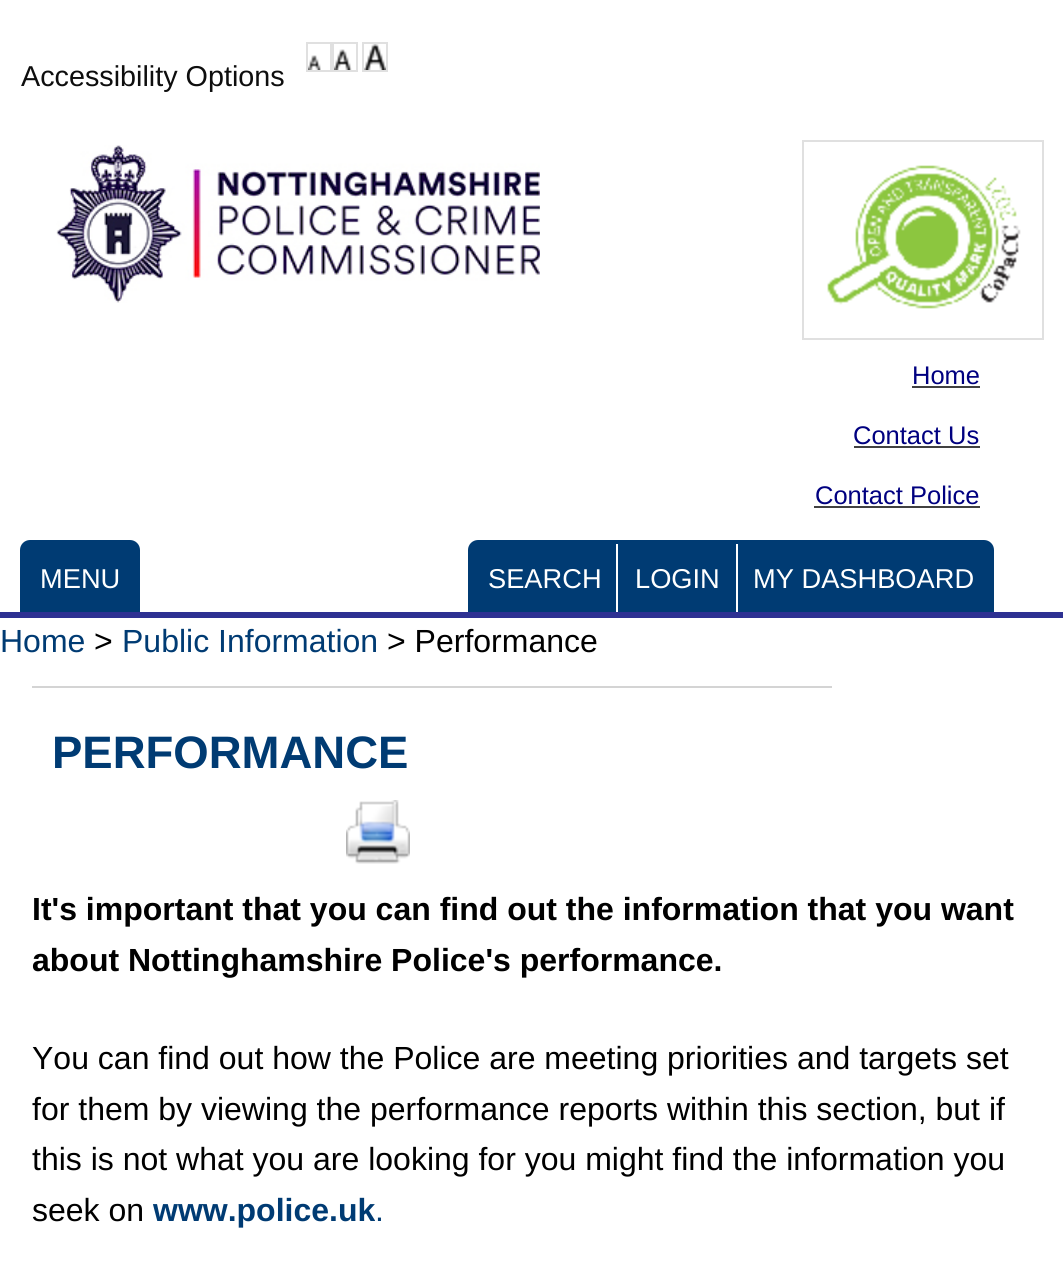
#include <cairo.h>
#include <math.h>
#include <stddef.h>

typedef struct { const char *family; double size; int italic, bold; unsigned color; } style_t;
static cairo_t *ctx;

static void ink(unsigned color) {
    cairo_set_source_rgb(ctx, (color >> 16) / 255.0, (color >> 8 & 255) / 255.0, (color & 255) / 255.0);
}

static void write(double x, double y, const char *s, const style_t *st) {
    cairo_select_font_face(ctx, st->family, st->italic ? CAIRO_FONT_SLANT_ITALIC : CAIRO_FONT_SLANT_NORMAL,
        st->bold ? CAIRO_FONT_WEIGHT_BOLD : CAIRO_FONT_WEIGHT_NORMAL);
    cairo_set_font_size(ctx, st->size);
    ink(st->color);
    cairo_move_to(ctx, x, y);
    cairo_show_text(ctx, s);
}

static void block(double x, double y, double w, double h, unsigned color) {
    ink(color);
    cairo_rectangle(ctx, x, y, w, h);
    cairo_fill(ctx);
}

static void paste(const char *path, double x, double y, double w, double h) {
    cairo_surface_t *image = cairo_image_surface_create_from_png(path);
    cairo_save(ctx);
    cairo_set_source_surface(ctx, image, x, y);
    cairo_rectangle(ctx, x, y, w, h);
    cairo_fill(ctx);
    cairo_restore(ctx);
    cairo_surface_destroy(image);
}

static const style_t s1 = {"Liberation Sans", 28.75, 0, 0, 0x0e0e0e};
static const style_t s2 = {"Liberation Sans", 25.5, 0, 0, 0x000080};
static const style_t s3 = {"Liberation Sans", 27.25, 0, 0, 0xffffff};
static const style_t s4 = {"Liberation Sans", 32, 0, 0, 0x003b73};
static const style_t s5 = {"Liberation Sans", 32, 0, 0, 0x000000};
static const style_t s6 = {"Liberation Sans", 45.5, 0, 1, 0x003b73};
static const style_t s7 = {"Liberation Sans", 32, 0, 1, 0x000000};
static const style_t s8 = {"Liberation Sans", 32, 0, 1, 0x003b73};

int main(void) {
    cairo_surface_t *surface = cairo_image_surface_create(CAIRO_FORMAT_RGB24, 1063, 1262);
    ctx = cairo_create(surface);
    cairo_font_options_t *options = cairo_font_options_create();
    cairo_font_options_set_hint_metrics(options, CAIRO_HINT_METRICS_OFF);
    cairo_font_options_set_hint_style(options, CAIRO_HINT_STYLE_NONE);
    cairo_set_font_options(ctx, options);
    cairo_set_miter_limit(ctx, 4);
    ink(0xffffff);
    cairo_paint(ctx);
    cairo_rectangle(ctx, 307, 43, 24, 28);
    ink(0xe0e0e0);
    cairo_stroke(ctx);
    paste("pic1.png", 308, 55, 13, 15);
    cairo_rectangle(ctx, 333, 43, 24, 28);
    cairo_stroke(ctx);
    paste("pic2.png", 334, 49, 18, 21);
    cairo_rectangle(ctx, 363, 43, 24, 28);
    cairo_stroke(ctx);
    paste("pic3.png", 364, 44, 22, 26);
    write(21, 86, "Accessibility Options", &s1);
    block(0, 612, 1063, 6, 0x2e3192);
    paste("pic4.png", 56, 145, 484, 158);
    cairo_rectangle(ctx, 803, 141, 240, 198);
    ink(0xe0e0e0);
    cairo_stroke(ctx);
    paste("pic5.png", 827, 165, 194, 144);
    write(912, 384, "Home", &s2);
    block(912, 386, 68, 2, 0x414141);
    write(853, 444, "Contact Us", &s2);
    block(854, 446, 126, 2, 0x414141);
    write(815, 504, "Contact Police", &s2);
    block(814, 506, 166, 2, 0x414141);
    ink(0x003b73);
    cairo_new_path(ctx);
    cairo_move_to(ctx, 30, 540);
    cairo_line_to(ctx, 130, 540);
    cairo_curve_to(ctx, 135.5, 540, 140, 544.5, 140, 550);
    cairo_line_to(ctx, 140, 612);
    cairo_line_to(ctx, 20, 612);
    cairo_line_to(ctx, 20, 550);
    cairo_curve_to(ctx, 20, 544.5, 24.5, 540, 30, 540);
    cairo_close_path(ctx);
    cairo_fill(ctx);
    write(40, 588, "MENU", &s3);
    ink(0x003b73);
    cairo_new_path(ctx);
    cairo_move_to(ctx, 478, 540);
    cairo_line_to(ctx, 984, 540);
    cairo_curve_to(ctx, 989.5, 540, 994, 544.5, 994, 550);
    cairo_line_to(ctx, 994, 612);
    cairo_line_to(ctx, 468, 612);
    cairo_line_to(ctx, 468, 550);
    cairo_curve_to(ctx, 468, 544.5, 472.5, 540, 478, 540);
    cairo_close_path(ctx);
    cairo_fill(ctx);
    block(616, 544, 2, 68, 0xffffff);
    write(488, 588, "SEARCH", &s3);
    block(736, 544, 2, 68, 0xffffff);
    write(635, 588, "LOGIN", &s3);
    write(753, 588, "MY DASHBOARD", &s3);
    write(0, 652, "Home", &s4);
    write(94, 652, ">", &s5);
    write(122, 652, "Public Information", &s4);
    write(387, 652, "> Performance", &s5);
    block(32, 686, 800, 2, 0xd4d4d4);
    write(52, 768, "PERFORMANCE", &s6);
    paste("pic6.png", 346, 800, 64, 64);
    write(32, 920, "It's important that you can find out the information that you want", &s7);
    write(32, 971, "about Nottinghamshire Police's performance.", &s7);
    write(32, 1069, "You can find out how the Police are meeting priorities and targets set", &s5);
    write(32, 1120, "for them by viewing the performance reports within this section, but if", &s5);
    write(32, 1170, "this is not what you are looking for you might find the information you", &s5);
    write(32, 1221, "seek on", &s5);
    write(153, 1221, "www.police.uk", &s8);
    write(375, 1221, ".", &s4);
    cairo_surface_write_to_png(surface, "screenshot.png");
    cairo_font_options_destroy(options);
    cairo_destroy(ctx);
    cairo_surface_destroy(surface);
    return 0;
}
